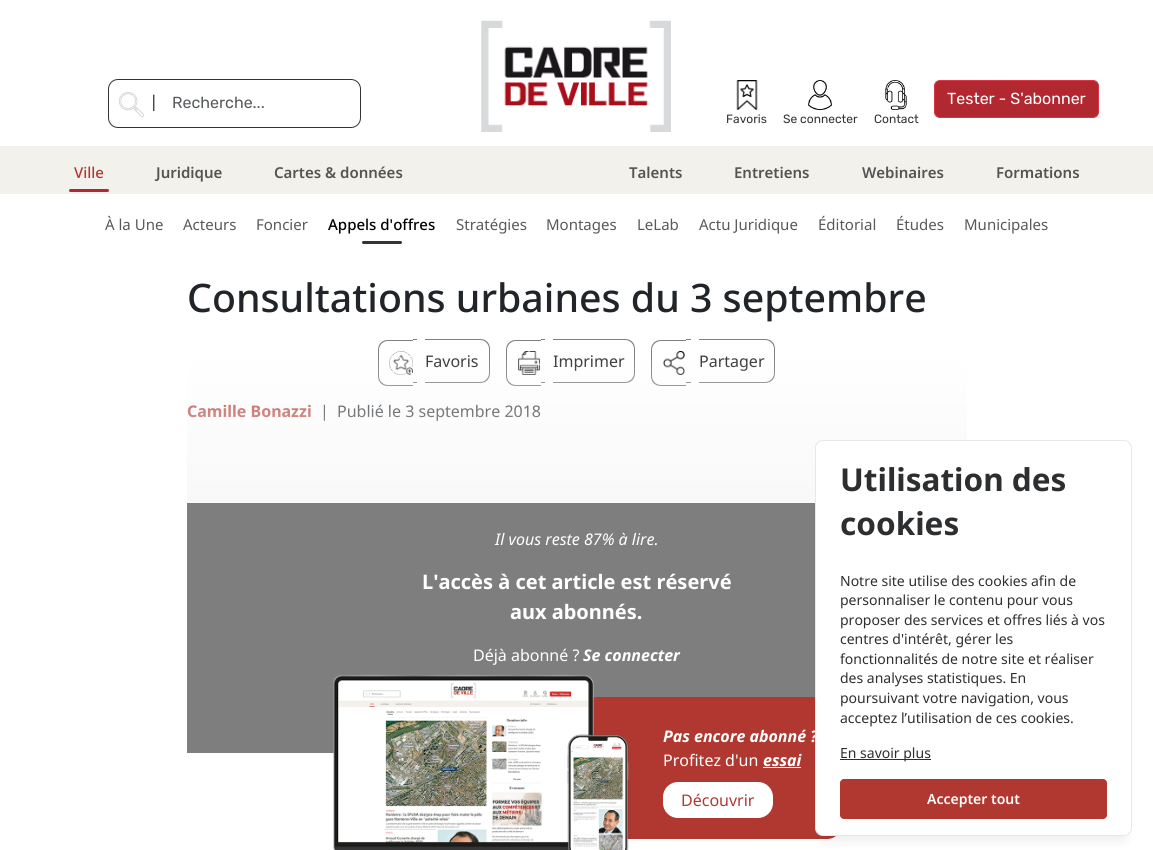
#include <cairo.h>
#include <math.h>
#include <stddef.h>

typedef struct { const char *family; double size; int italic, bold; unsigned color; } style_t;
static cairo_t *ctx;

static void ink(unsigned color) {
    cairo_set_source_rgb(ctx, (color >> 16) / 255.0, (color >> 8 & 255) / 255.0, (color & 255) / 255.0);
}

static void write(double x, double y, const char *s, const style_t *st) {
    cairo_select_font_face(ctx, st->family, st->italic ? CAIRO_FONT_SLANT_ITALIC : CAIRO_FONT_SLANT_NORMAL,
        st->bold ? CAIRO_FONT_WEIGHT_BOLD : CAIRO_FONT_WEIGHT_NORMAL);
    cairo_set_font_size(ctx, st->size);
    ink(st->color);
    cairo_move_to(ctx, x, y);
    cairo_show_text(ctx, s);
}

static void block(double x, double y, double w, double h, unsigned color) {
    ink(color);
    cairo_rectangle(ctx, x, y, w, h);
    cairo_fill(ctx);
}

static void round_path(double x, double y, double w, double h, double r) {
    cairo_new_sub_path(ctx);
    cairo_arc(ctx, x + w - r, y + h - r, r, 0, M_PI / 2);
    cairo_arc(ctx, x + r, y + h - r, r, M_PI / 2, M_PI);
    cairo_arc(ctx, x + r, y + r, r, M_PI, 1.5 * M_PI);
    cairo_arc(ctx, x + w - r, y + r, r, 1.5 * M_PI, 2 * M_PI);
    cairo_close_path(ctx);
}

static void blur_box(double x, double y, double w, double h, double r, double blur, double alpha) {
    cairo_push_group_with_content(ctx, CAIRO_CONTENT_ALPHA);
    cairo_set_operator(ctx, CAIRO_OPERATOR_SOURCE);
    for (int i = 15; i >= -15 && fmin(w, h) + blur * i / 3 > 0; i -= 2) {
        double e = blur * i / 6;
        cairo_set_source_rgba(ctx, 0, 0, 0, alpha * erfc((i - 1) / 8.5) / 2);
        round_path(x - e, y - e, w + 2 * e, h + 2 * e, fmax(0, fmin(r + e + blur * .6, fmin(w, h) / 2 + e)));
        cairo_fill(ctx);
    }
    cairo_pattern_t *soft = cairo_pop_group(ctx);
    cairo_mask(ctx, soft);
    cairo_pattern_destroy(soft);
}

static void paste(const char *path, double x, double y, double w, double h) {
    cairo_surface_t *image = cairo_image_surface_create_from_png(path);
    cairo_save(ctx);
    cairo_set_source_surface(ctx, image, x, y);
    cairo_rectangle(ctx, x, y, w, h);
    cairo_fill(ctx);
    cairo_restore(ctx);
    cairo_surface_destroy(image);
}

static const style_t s1 = {"Rubik", 15, 0, 0, 0x333333};
static const style_t s2 = {"Rubik", 16, 0, 0, 0x595c5f};
static const style_t s3 = {"Rubik", 16, 0, 0, 0xffffff};
static const style_t s4 = {"Rubik", 12, 0, 0, 0x333333};
static const style_t s5 = {"Noto Sans Medium", 15, 0, 0, 0xb13830};
static const style_t s6 = {"Noto Sans SemiBold", 15, 0, 0, 0x555453};
static const style_t s7 = {"Noto Sans", 15, 0, 0, 0x595959};
static const style_t s8 = {"Noto Sans Medium", 15, 0, 0, 0x000000};
static const style_t s9 = {"Noto Sans Medium", 39.25, 0, 0, 0x212529};
static const style_t s10 = {"Noto Sans", 16, 0, 0, 0x333333};
static const style_t s11 = {"Noto Sans", 16, 0, 1, 0xb13830};
static const style_t s12 = {"Noto Sans", 16, 0, 0, 0x212529};
static const style_t s13 = {"Noto Sans", 16, 1, 0, 0xffffff};
static const style_t s14 = {"Noto Sans", 20, 0, 1, 0xffffff};
static const style_t s15 = {"Noto Sans", 16, 0, 0, 0xffffff};
static const style_t s16 = {"Noto Sans", 16, 1, 1, 0xffffff};
static const style_t s17 = {"Noto Sans", 16, 0, 0, 0xb13830};
static const style_t s18 = {"Noto Sans", 31.5, 0, 1, 0x2c2e30};
static const style_t s19 = {"Noto Sans", 14, 0, 0, 0x2c2e30};
static const style_t s20 = {"Noto Sans SemiBold", 14, 0, 0, 0xffffff};

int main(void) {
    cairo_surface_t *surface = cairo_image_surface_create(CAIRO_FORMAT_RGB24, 1153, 850);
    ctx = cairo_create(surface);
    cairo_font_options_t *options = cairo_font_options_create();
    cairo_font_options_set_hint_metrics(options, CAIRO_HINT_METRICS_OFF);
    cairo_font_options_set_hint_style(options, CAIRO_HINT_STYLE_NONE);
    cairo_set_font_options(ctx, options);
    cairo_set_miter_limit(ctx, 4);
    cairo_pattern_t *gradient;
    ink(0xffffff);
    cairo_paint(ctx);
    round_path(108.5, 79.5, 252, 48, 9.5);
    ink(0x333333);
    cairo_set_line_width(ctx, 1);
    cairo_stroke(ctx);
    paste("pic1.png", 119, 92, 25, 25);
    write(152, 108, "|", &s1);
    write(172, 108, "Recherche...", &s2);
    paste("pic2.png", 481, 20, 190, 112);
    ink(0xb12831);
    round_path(934.5, 80.5, 164, 37, 5.5);
    cairo_fill_preserve(ctx);
    ink(0xdc3545);
    cairo_stroke(ctx);
    write(947, 104, "Tester - S'abonner", &s3);
    paste("pic3.png", 736, 80, 22, 30);
    write(726, 123, "Favoris", &s4);
    paste("pic4.png", 808, 80, 24, 30);
    write(783, 123, "Se connecter", &s4);
    paste("pic5.png", 885, 80, 22, 30);
    write(874, 123, "Contact", &s4);
    block(0, 146, 1153, 48, 0xf3f1ec);
    write(74, 178, "Ville", &s5);
    ink(0xb12831);
    round_path(69, 189, 40, 3, 1.5);
    cairo_fill(ctx);
    write(156, 178, "Juridique", &s6);
    write(274, 178, "Cartes & données", &s6);
    write(629, 178, "Talents", &s6);
    write(734, 178, "Entretiens", &s6);
    write(862, 178, "Webinaires", &s6);
    write(996, 178, "Formations", &s6);
    write(105, 230, "À la Une", &s7);
    write(183, 230, "Acteurs", &s7);
    write(256, 230, "Foncier", &s7);
    write(328, 230, "Appels d'offres", &s8);
    ink(0x333333);
    round_path(362, 241, 40, 3, 1.5);
    cairo_fill(ctx);
    write(456, 230, "Stratégies", &s7);
    write(546, 230, "Montages", &s7);
    write(637, 230, "LeLab", &s7);
    write(699, 230, "Actu Juridique", &s7);
    write(818, 230, "Éditorial", &s7);
    write(896, 230, "Études", &s7);
    write(964, 230, "Municipales", &s7);
    write(187, 312, "Consultations urbaines du 3 septembre", &s9);
    ink(0x808080);
    cairo_set_fill_rule(ctx, CAIRO_FILL_RULE_EVEN_ODD);
    cairo_new_path(ctx);
    cairo_move_to(ctx, 388, 340);
    cairo_line_to(ctx, 413, 340);
    cairo_line_to(ctx, 413, 386);
    cairo_line_to(ctx, 388, 386);
    cairo_curve_to(ctx, 382, 386, 378, 382, 378, 376);
    cairo_line_to(ctx, 378, 350);
    cairo_curve_to(ctx, 378, 344, 382, 340, 388, 340);
    cairo_close_path(ctx);
    cairo_move_to(ctx, 388, 341);
    cairo_line_to(ctx, 413, 341);
    cairo_line_to(ctx, 413, 385);
    cairo_line_to(ctx, 388, 385);
    cairo_curve_to(ctx, 383, 385, 379, 381, 379, 376);
    cairo_line_to(ctx, 379, 350);
    cairo_curve_to(ctx, 379, 345, 383, 341, 388, 341);
    cairo_close_path(ctx);
    cairo_fill(ctx);
    paste("pic6.png", 389, 351, 24, 24);
    cairo_new_path(ctx);
    cairo_move_to(ctx, 425, 339);
    cairo_line_to(ctx, 480, 339);
    cairo_curve_to(ctx, 486, 339, 490, 343, 490, 349);
    cairo_line_to(ctx, 490, 373);
    cairo_curve_to(ctx, 490, 379, 486, 383, 480, 383);
    cairo_line_to(ctx, 425, 383);
    cairo_close_path(ctx);
    cairo_move_to(ctx, 425, 340);
    cairo_line_to(ctx, 480, 340);
    cairo_curve_to(ctx, 485, 340, 489, 344, 489, 349);
    cairo_line_to(ctx, 489, 373);
    cairo_curve_to(ctx, 489, 378, 485, 382, 480, 382);
    cairo_line_to(ctx, 425, 382);
    cairo_close_path(ctx);
    cairo_fill(ctx);
    write(425, 367, "Favoris", &s10);
    block(413, 339, 4, 1, 0x808080);
    block(413, 382, 4, 1, 0x808080);
    cairo_new_path(ctx);
    cairo_move_to(ctx, 516, 340);
    cairo_line_to(ctx, 541, 340);
    cairo_line_to(ctx, 541, 386);
    cairo_line_to(ctx, 516, 386);
    cairo_curve_to(ctx, 510, 386, 506, 382, 506, 376);
    cairo_line_to(ctx, 506, 350);
    cairo_curve_to(ctx, 506, 344, 510, 340, 516, 340);
    cairo_close_path(ctx);
    cairo_move_to(ctx, 516, 341);
    cairo_line_to(ctx, 541, 341);
    cairo_line_to(ctx, 541, 385);
    cairo_line_to(ctx, 516, 385);
    cairo_curve_to(ctx, 511, 385, 507, 381, 507, 376);
    cairo_line_to(ctx, 507, 350);
    cairo_curve_to(ctx, 507, 345, 511, 341, 516, 341);
    cairo_close_path(ctx);
    cairo_fill(ctx);
    paste("pic7.png", 518, 351, 23, 24);
    cairo_new_path(ctx);
    cairo_move_to(ctx, 553, 339);
    cairo_line_to(ctx, 625, 339);
    cairo_curve_to(ctx, 631, 339, 635, 343, 635, 349);
    cairo_line_to(ctx, 635, 373);
    cairo_curve_to(ctx, 635, 379, 631, 383, 625, 383);
    cairo_line_to(ctx, 553, 383);
    cairo_close_path(ctx);
    cairo_move_to(ctx, 553, 340);
    cairo_line_to(ctx, 625, 340);
    cairo_curve_to(ctx, 630, 340, 634, 344, 634, 349);
    cairo_line_to(ctx, 634, 373);
    cairo_curve_to(ctx, 634, 378, 630, 382, 625, 382);
    cairo_line_to(ctx, 553, 382);
    cairo_close_path(ctx);
    cairo_fill(ctx);
    write(553, 367, "Imprimer", &s10);
    block(541, 339, 4, 1, 0x808080);
    block(541, 382, 4, 1, 0x808080);
    cairo_new_path(ctx);
    cairo_move_to(ctx, 661, 340);
    cairo_line_to(ctx, 686, 340);
    cairo_line_to(ctx, 686, 386);
    cairo_line_to(ctx, 661, 386);
    cairo_curve_to(ctx, 655, 386, 651, 382, 651, 376);
    cairo_line_to(ctx, 651, 350);
    cairo_curve_to(ctx, 651, 344, 655, 340, 661, 340);
    cairo_close_path(ctx);
    cairo_move_to(ctx, 661, 341);
    cairo_line_to(ctx, 686, 341);
    cairo_line_to(ctx, 686, 385);
    cairo_line_to(ctx, 661, 385);
    cairo_curve_to(ctx, 656, 385, 652, 381, 652, 376);
    cairo_line_to(ctx, 652, 350);
    cairo_curve_to(ctx, 652, 345, 656, 341, 661, 341);
    cairo_close_path(ctx);
    cairo_fill(ctx);
    paste("pic8.png", 663, 351, 23, 24);
    cairo_new_path(ctx);
    cairo_move_to(ctx, 699, 339);
    cairo_line_to(ctx, 765, 339);
    cairo_curve_to(ctx, 771, 339, 775, 343, 775, 349);
    cairo_line_to(ctx, 775, 373);
    cairo_curve_to(ctx, 775, 379, 771, 383, 765, 383);
    cairo_line_to(ctx, 699, 383);
    cairo_close_path(ctx);
    cairo_move_to(ctx, 699, 340);
    cairo_line_to(ctx, 765, 340);
    cairo_curve_to(ctx, 770, 340, 774, 344, 774, 349);
    cairo_line_to(ctx, 774, 373);
    cairo_curve_to(ctx, 774, 378, 770, 382, 765, 382);
    cairo_line_to(ctx, 699, 382);
    cairo_close_path(ctx);
    cairo_fill(ctx);
    write(699, 367, "Partager", &s10);
    block(686, 339, 5, 1, 0x808080);
    block(686, 382, 5, 1, 0x808080);
    write(187, 417, "Camille Bonazzi", &s11);
    write(320, 417, "|", &s12);
    write(337, 417, "Publié le 3 septembre 2018", &s12);
    gradient = cairo_pattern_create_linear(577, 353, 577, 503);
    cairo_pattern_add_color_stop_rgba(gradient, 0, 0.973, 0.973, 0.973, 0);
    cairo_pattern_add_color_stop_rgba(gradient, 1, 0.973, 0.973, 0.973, 1);
    cairo_set_source(ctx, gradient);
    cairo_pattern_destroy(gradient);
    cairo_rectangle(ctx, 187, 356, 780, 147);
    cairo_fill(ctx);
    block(187, 503, 628, 250, 0x7e7e7e);
    write(495, 545, "Il vous reste 87% à lire.", &s13);
    write(422, 589, "L'accès à cet article est réservé", &s14);
    write(510, 619, "aux abonnés.", &s14);
    write(473, 661, "Déjà abonné ?", &s15);
    write(583, 661, "Se connecter", &s16);
    ink(0xb13830);
    round_path(583, 697, 259, 142, 15);
    cairo_fill(ctx);
    paste("pic9.png", 333, 674, 296, 176);
    write(663, 742, "Pas encore abonné ?", &s16);
    write(663, 766, "Profitez d'un", &s15);
    write(763, 766, "essai", &s16);
    block(763, 767, 38, 1, 0xffffff);
    round_path(663, 782, 110, 36, 15);
    cairo_fill(ctx);
    write(681, 806, "Découvrir", &s17);
    ink(0x000000);
    blur_box(823, 460, 301, 380, 0, 6, 0.08);
    ink(0xffffff);
    round_path(815.5, 440.5, 316, 395, 7.5);
    cairo_fill_preserve(ctx);
    ink(0xe7e8e9);
    cairo_stroke(ctx);
    write(840, 491, "Utilisation des", &s18);
    write(840, 535, "cookies", &s18);
    write(840, 586, "Notre site utilise des cookies afin de", &s19);
    write(840, 605, "personnaliser le contenu pour vous", &s19);
    write(840, 625, "proposer des services et offres liés à vos", &s19);
    write(840, 644, "centres d'intérêt, gérer les", &s19);
    write(840, 664, "fonctionnalités de notre site et réaliser", &s19);
    write(840, 683, "des analyses statistiques. En", &s19);
    write(840, 703, "poursuivant votre navigation, vous", &s19);
    write(840, 723, "acceptez l’utilisation de ces cookies.", &s19);
    block(840, 759, 91, 1, 0x2c2e30);
    write(840, 758, "En savoir plus", &s19);
    ink(0xb13830);
    round_path(840.5, 779.5, 266, 39, 3.5);
    cairo_fill_preserve(ctx);
    cairo_stroke(ctx);
    write(927, 804, "Accepter tout", &s20);
    cairo_surface_write_to_png(surface, "screenshot.png");
    cairo_font_options_destroy(options);
    cairo_destroy(ctx);
    cairo_surface_destroy(surface);
    return 0;
}
